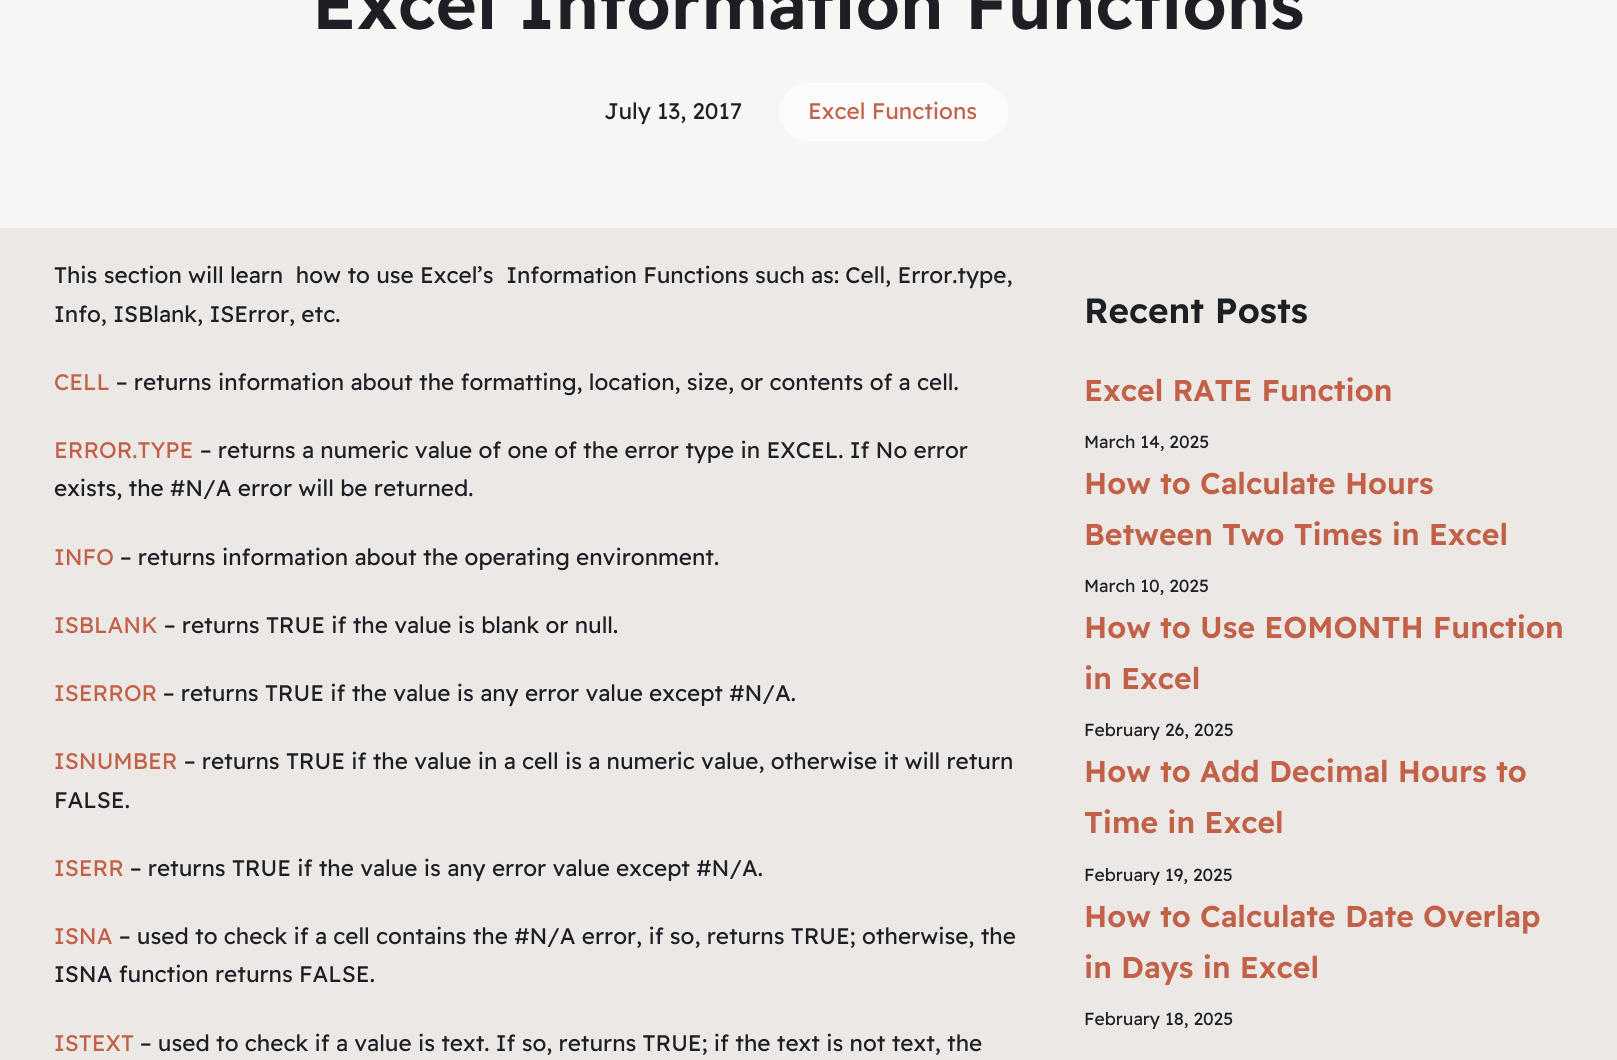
#include <cairo.h>
#include <math.h>
#include <stddef.h>

typedef struct { const char *family; double size; int italic, bold; unsigned color; } style_t;
static cairo_t *ctx;

static void ink(unsigned color) {
    cairo_set_source_rgb(ctx, (color >> 16) / 255.0, (color >> 8 & 255) / 255.0, (color & 255) / 255.0);
}

static void write(double x, double y, const char *s, const style_t *st) {
    cairo_select_font_face(ctx, st->family, st->italic ? CAIRO_FONT_SLANT_ITALIC : CAIRO_FONT_SLANT_NORMAL,
        st->bold ? CAIRO_FONT_WEIGHT_BOLD : CAIRO_FONT_WEIGHT_NORMAL);
    cairo_set_font_size(ctx, st->size);
    ink(st->color);
    cairo_move_to(ctx, x, y);
    cairo_show_text(ctx, s);
}

static void block(double x, double y, double w, double h, unsigned color) {
    ink(color);
    cairo_rectangle(ctx, x, y, w, h);
    cairo_fill(ctx);
}

static void round_path(double x, double y, double w, double h, double r) {
    cairo_new_sub_path(ctx);
    cairo_arc(ctx, x + w - r, y + h - r, r, 0, M_PI / 2);
    cairo_arc(ctx, x + r, y + h - r, r, M_PI / 2, M_PI);
    cairo_arc(ctx, x + r, y + r, r, M_PI, 1.5 * M_PI);
    cairo_arc(ctx, x + w - r, y + r, r, 1.5 * M_PI, 2 * M_PI);
    cairo_close_path(ctx);
}

static const style_t s1 = {"Readex Pro SemiBold", 70, 0, 0, 0x1d1f25};
static const style_t s2 = {"Readex Pro", 22.5, 0, 0, 0x1d1f25};
static const style_t s3 = {"Readex Pro", 22.5, 0, 0, 0xc26148};
static const style_t s4 = {"Readex Pro SemiBold", 35, 0, 0, 0x1d1f25};
static const style_t s5 = {"Readex Pro SemiBold", 30, 0, 0, 0xc26148};
static const style_t s6 = {"Readex Pro", 17.5, 0, 0, 0x1d1f25};

int main(void) {
    cairo_surface_t *surface = cairo_image_surface_create(CAIRO_FORMAT_RGB24, 1617, 1060);
    ctx = cairo_create(surface);
    cairo_font_options_t *options = cairo_font_options_create();
    cairo_font_options_set_hint_metrics(options, CAIRO_HINT_METRICS_OFF);
    cairo_font_options_set_hint_style(options, CAIRO_HINT_STYLE_NONE);
    cairo_set_font_options(ctx, options);
    cairo_set_miter_limit(ctx, 4);
    ink(0xebe8e6);
    cairo_paint(ctx);
    block(0, 0, 1617, 228, 0xf7f6f5);
    write(312, 29, "Excel Information Functions", &s1);
    write(604, 119, "July 13, 2017", &s2);
    ink(0xfcfbfb);
    round_path(779, 83, 229, 58, 29);
    cairo_fill(ctx);
    write(808, 119, "Excel Functions", &s3);
    write(54, 283, "This section will learn  how to use Excel’s  Information Functions such as: Cell, Error.type,", &s2);
    write(54, 322, "Info, ISBlank, ISError, etc.", &s2);
    write(54, 390, "CELL", &s3);
    write(116, 390, "– returns information about the formatting, location, size, or contents of a cell.", &s2);
    write(54, 458, "ERROR.TYPE", &s3);
    write(200, 458, "– returns a numeric value of one of the error type in EXCEL. If No error", &s2);
    write(54, 496, "exists, the #N/A error will be returned.", &s2);
    write(54, 565, "INFO", &s3);
    write(120, 565, "– returns information about the operating environment.", &s2);
    write(54, 633, "ISBLANK", &s3);
    write(164, 633, "– returns TRUE if the value is blank or null.", &s2);
    write(54, 701, "ISERROR", &s3);
    write(163, 701, "– returns TRUE if the value is any error value except #N/A.", &s2);
    write(54, 769, "ISNUMBER", &s3);
    write(184, 769, "– returns TRUE if the value in a cell is a numeric value, otherwise it will return", &s2);
    write(54, 808, "FALSE.", &s2);
    write(54, 876, "ISERR", &s3);
    write(130, 876, "– returns TRUE if the value is any error value except #N/A.", &s2);
    write(54, 944, "ISNA", &s3);
    write(119, 944, "– used to check if a cell contains the #N/A error, if so, returns TRUE; otherwise, the", &s2);
    write(54, 982, "ISNA function returns FALSE.", &s2);
    write(54, 1051, "ISTEXT", &s3);
    write(140, 1051, "– used to check if a value is text. If so, returns TRUE; if the text is not text, the", &s2);
    write(1084, 323, "Recent Posts", &s4);
    write(1084, 401, "Excel RATE Function", &s5);
    write(1084, 448, "March 14, 2025", &s6);
    write(1084, 494, "How to Calculate Hours", &s5);
    write(1084, 545, "Between Two Times in Excel", &s5);
    write(1084, 592, "March 10, 2025", &s6);
    write(1084, 638, "How to Use EOMONTH Function", &s5);
    write(1084, 689, "in Excel", &s5);
    write(1084, 736, "February 26, 2025", &s6);
    write(1084, 782, "How to Add Decimal Hours to", &s5);
    write(1084, 833, "Time in Excel", &s5);
    write(1084, 881, "February 19, 2025", &s6);
    write(1084, 927, "How to Calculate Date Overlap", &s5);
    write(1084, 978, "in Days in Excel", &s5);
    write(1084, 1025, "February 18, 2025", &s6);
    cairo_surface_write_to_png(surface, "screenshot.png");
    cairo_font_options_destroy(options);
    cairo_destroy(ctx);
    cairo_surface_destroy(surface);
    return 0;
}
